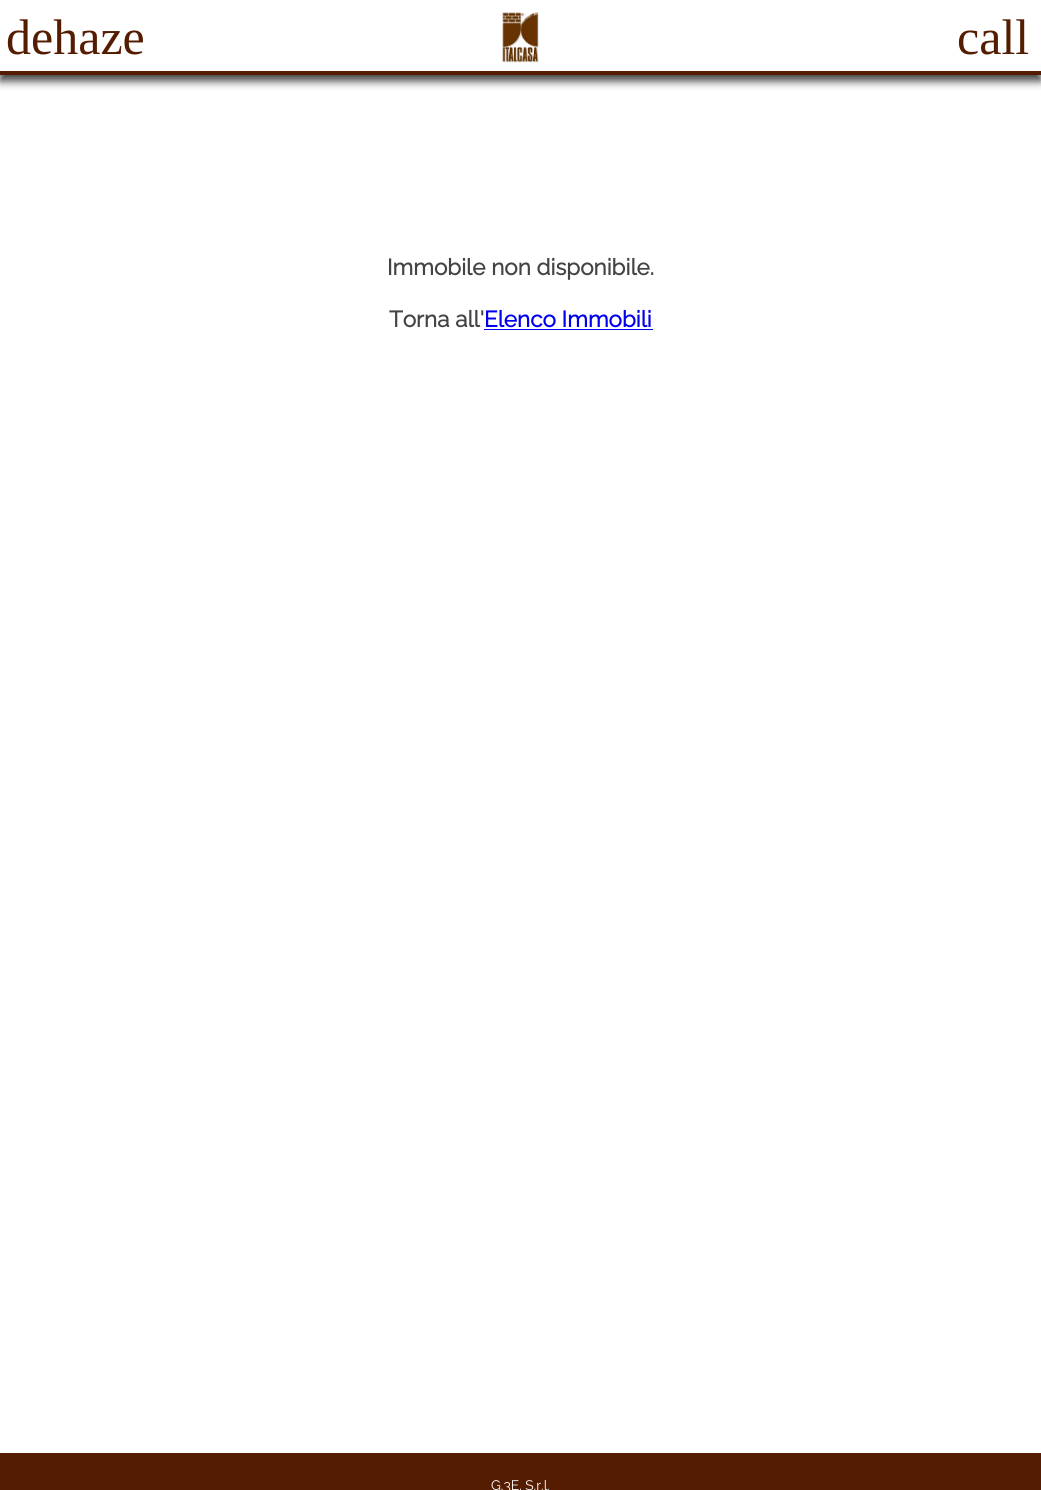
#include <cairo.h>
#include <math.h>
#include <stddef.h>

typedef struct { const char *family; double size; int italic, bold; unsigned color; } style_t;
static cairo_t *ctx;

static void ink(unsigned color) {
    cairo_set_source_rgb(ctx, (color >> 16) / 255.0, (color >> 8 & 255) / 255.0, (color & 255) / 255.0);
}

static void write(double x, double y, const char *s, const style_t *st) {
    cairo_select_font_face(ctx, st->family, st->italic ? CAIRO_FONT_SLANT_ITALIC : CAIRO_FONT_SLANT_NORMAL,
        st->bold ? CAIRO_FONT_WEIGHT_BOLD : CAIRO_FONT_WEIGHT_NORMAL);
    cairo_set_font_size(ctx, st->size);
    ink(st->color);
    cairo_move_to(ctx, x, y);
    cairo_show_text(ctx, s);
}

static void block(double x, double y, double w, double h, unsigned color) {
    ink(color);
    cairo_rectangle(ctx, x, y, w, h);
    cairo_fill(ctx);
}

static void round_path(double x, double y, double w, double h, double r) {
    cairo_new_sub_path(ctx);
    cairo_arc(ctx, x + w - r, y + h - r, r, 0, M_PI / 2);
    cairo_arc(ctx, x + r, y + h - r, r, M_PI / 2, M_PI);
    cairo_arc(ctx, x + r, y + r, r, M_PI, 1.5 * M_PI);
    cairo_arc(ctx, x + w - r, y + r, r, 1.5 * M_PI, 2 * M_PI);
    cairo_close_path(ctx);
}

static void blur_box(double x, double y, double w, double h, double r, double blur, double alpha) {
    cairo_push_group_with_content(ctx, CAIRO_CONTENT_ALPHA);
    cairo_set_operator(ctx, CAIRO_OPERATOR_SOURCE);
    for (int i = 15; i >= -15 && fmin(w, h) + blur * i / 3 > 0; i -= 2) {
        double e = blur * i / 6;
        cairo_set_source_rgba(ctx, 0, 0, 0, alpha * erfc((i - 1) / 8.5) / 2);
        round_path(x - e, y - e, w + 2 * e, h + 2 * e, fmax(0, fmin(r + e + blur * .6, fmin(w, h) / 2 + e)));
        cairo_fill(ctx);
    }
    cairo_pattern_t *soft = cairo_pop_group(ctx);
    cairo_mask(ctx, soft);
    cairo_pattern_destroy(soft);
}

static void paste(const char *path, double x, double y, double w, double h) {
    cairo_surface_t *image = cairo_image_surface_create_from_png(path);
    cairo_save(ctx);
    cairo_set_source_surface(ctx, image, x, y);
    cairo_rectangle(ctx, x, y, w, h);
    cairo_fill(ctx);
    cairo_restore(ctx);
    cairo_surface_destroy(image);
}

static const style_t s1 = {"Liberation Serif", 50, 0, 0, 0x541c00};
static const style_t s2 = {"Raleway", 22.5, 0, 1, 0x444444};
static const style_t s3 = {"Raleway", 22.5, 0, 1, 0x0000ee};
static const style_t s4 = {"Raleway Thin", 13.75, 0, 0, 0xffffff};

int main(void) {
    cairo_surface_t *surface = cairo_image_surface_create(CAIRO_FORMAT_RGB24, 1041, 1490);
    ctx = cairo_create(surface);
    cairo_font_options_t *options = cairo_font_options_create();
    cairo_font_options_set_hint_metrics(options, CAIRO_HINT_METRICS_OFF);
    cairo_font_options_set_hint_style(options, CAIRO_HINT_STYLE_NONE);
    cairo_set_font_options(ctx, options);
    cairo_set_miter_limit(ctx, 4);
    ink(0xffffff);
    cairo_paint(ctx);
    cairo_save(ctx);
    cairo_rectangle(ctx, 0, 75, 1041, 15);
    cairo_clip(ctx);
    ink(0x000000);
    blur_box(0, 6, 1041, 75, 0, 4.5, 0.75);
    cairo_restore(ctx);
    block(0, 71, 1041, 4, 0x541c00);
    write(6, 54, "dehaze", &s1);
    paste("pic1.png", 502, 12, 37, 51);
    write(957, 54, "call", &s1);
    write(387, 275, "Immobile non disponibile.", &s2);
    write(389, 327, "Torna all'", &s2);
    write(484, 327, "Elenco Immobili", &s3);
    block(484, 329, 169, 1, 0x0000ee);
    block(0, 1453, 1041, 37, 0x541c00);
    write(491, 1490, "G.3E. S.r.l.", &s4);
    cairo_surface_write_to_png(surface, "screenshot.png");
    cairo_font_options_destroy(options);
    cairo_destroy(ctx);
    cairo_surface_destroy(surface);
    return 0;
}
